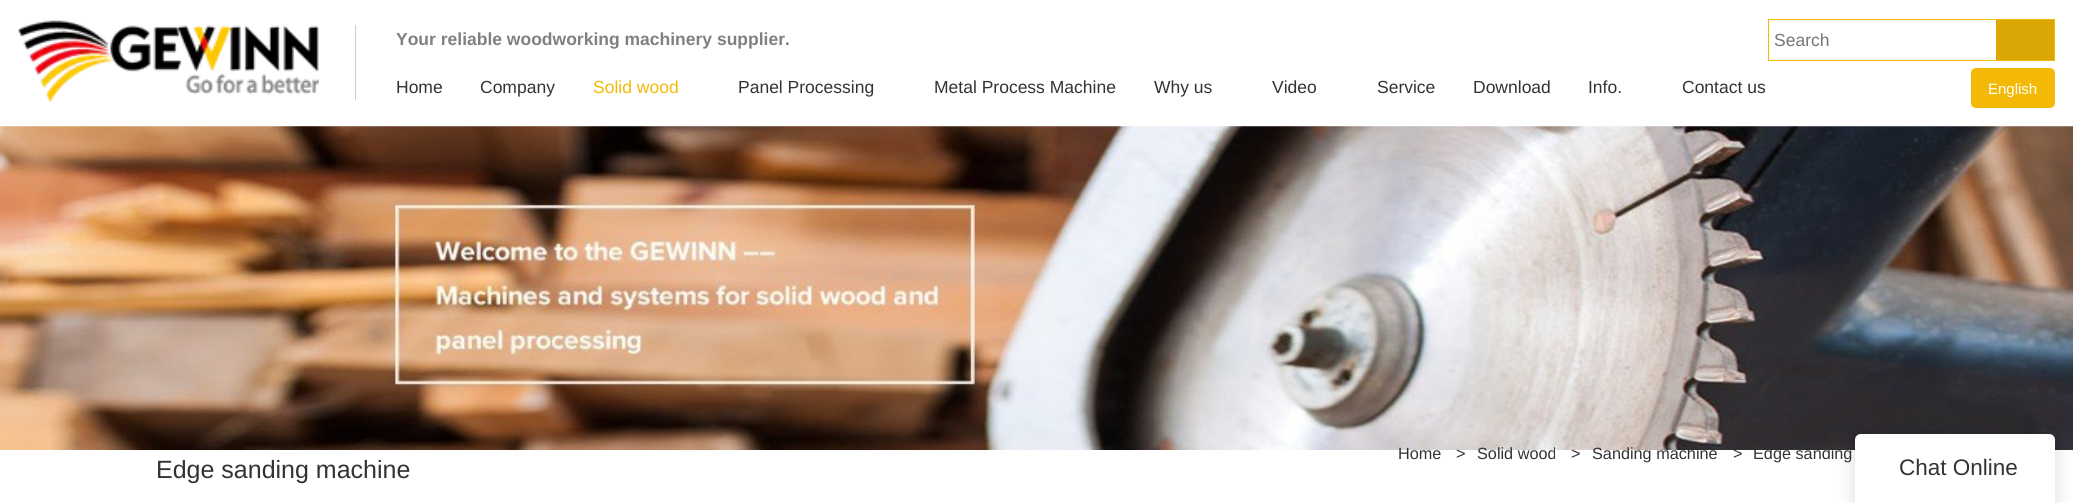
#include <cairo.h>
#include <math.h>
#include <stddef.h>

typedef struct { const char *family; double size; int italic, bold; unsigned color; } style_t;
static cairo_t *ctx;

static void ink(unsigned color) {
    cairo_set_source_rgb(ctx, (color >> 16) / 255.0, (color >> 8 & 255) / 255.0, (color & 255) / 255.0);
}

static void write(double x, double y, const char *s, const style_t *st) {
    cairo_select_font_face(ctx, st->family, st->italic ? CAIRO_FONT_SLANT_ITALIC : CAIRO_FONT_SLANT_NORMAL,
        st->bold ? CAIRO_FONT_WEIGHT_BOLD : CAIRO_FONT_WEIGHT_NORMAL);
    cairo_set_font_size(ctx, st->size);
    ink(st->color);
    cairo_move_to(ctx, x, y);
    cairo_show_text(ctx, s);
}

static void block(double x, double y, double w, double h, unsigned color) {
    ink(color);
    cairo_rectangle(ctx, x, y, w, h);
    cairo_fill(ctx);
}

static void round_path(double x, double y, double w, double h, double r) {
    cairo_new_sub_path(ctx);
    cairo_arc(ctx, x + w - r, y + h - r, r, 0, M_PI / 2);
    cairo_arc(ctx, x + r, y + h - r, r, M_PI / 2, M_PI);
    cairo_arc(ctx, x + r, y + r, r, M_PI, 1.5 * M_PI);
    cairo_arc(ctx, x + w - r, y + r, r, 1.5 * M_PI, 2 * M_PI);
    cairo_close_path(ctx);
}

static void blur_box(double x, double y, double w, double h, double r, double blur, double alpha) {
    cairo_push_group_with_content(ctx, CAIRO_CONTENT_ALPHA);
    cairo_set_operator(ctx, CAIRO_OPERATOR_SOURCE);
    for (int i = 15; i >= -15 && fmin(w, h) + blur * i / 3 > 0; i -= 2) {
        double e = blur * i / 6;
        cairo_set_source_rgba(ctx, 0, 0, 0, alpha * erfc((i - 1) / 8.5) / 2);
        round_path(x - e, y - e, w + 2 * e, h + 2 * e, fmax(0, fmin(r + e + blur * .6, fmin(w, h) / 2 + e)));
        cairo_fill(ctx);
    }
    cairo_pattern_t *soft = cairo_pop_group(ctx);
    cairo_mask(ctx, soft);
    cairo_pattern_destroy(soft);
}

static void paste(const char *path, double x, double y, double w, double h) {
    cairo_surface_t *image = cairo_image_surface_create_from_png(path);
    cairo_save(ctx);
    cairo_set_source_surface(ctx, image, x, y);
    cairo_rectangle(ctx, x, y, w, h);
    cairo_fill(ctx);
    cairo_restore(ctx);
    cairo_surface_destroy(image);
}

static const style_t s1 = {"Liberation Sans", 17.5, 0, 1, 0x808080};
static const style_t s2 = {"Liberation Sans", 17.5, 0, 0, 0x757575};
static const style_t s3 = {"Liberation Sans", 17.5, 0, 0, 0x333333};
static const style_t s4 = {"Liberation Sans", 17.5, 0, 0, 0xf3b906};
static const style_t s5 = {"Liberation Sans", 15, 0, 0, 0xffffff};
static const style_t s6 = {"Liberation Sans", 16.25, 0, 0, 0x333333};
static const style_t s7 = {"Liberation Sans", 25, 0, 0, 0x333333};
static const style_t s8 = {"Liberation Sans", 22.5, 0, 0, 0x333333};

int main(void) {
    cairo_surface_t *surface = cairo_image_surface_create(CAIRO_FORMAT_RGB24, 2073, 503);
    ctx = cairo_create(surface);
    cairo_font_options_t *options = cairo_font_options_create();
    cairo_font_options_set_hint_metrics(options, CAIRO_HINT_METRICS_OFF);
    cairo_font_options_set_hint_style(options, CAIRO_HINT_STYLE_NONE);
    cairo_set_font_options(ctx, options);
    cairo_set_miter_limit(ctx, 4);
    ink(0xffffff);
    cairo_paint(ctx);
    paste("pic1.png", 18, 20, 301, 83);
    block(355, 25, 1, 75, 0xcccccc);
    write(396, 45, "Your reliable woodworking machinery supplier.", &s1);
    block(1768, 19, 287, 42, 0xf3b906);
    block(1769, 20, 227, 40, 0xffffff);
    write(1774, 46, "Search", &s2);
    block(1996, 20, 58, 40, 0xdba705);
    write(396, 93, "Home", &s3);
    write(480, 93, "Company", &s3);
    write(593, 93, "Solid wood", &s4);
    write(738, 93, "Panel Processing", &s3);
    write(934, 93, "Metal Process Machine", &s3);
    write(1154, 93, "Why us", &s3);
    write(1272, 93, "Video", &s3);
    write(1377, 93, "Service", &s3);
    write(1473, 93, "Download", &s3);
    write(1588, 93, "Info.", &s3);
    write(1682, 93, "Contact us", &s3);
    ink(0xf3b906);
    round_path(1971, 68, 84, 40, 5);
    cairo_fill(ctx);
    write(1988, 94, "English", &s5);
    paste("pic2.png", 0, 126, 2073, 324);
    write(1398, 459, "Home", &s6);
    write(1456, 459, ">", &s6);
    write(1477, 459, "Solid wood", &s6);
    write(1571, 459, ">", &s6);
    write(1592, 459, "Sanding machine", &s6);
    write(1733, 459, ">", &s6);
    write(1753, 459, "Edge sanding", &s6);
    write(156, 478, "Edge sanding machine", &s7);
    ink(0x000000);
    blur_box(1855, 435, 200, 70, 6, 9.5, 0.15);
    ink(0xffffff);
    cairo_new_path(ctx);
    cairo_move_to(ctx, 1861, 434);
    cairo_line_to(ctx, 2049, 434);
    cairo_curve_to(ctx, 2052.5, 434, 2055, 436.5, 2055, 440);
    cairo_line_to(ctx, 2055, 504);
    cairo_line_to(ctx, 1855, 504);
    cairo_line_to(ctx, 1855, 440);
    cairo_curve_to(ctx, 1855, 436.5, 1857.5, 434, 1861, 434);
    cairo_close_path(ctx);
    cairo_fill(ctx);
    write(1899, 475, "Chat Online", &s8);
    cairo_surface_write_to_png(surface, "screenshot.png");
    cairo_font_options_destroy(options);
    cairo_destroy(ctx);
    cairo_surface_destroy(surface);
    return 0;
}
